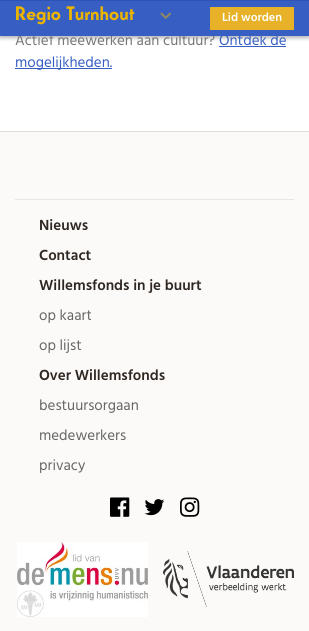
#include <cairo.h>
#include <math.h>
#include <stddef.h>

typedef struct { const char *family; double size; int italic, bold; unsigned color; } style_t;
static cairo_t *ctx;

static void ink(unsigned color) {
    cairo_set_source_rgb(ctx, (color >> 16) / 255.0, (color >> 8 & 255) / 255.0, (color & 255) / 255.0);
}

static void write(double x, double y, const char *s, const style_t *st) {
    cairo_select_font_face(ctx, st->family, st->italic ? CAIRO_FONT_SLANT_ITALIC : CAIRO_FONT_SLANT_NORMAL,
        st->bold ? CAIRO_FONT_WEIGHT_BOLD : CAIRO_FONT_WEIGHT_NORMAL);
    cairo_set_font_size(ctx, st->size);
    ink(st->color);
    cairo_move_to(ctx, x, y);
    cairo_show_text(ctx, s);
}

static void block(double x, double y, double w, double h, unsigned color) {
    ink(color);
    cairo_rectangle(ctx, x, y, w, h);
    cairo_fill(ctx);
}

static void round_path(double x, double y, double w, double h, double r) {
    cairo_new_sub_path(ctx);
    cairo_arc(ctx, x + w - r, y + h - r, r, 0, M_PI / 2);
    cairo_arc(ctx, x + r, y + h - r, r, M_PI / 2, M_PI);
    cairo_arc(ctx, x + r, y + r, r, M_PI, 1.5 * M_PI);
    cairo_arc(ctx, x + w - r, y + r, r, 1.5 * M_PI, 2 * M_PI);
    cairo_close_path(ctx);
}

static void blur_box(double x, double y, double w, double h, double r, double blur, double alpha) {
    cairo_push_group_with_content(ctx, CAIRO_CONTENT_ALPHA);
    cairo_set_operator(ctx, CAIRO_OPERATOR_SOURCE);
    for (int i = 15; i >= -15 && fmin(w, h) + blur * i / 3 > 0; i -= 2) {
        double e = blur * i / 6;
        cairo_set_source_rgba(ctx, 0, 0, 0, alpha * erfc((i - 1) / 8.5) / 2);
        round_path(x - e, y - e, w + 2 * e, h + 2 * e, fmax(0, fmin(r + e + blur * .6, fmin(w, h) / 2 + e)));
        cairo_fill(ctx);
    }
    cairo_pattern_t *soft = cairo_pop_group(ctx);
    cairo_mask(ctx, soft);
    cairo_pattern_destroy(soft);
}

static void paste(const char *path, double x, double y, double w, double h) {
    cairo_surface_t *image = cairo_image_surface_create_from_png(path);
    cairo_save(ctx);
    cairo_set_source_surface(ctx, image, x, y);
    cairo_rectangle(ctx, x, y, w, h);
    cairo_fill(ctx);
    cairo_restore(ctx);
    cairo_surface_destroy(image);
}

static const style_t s1 = {"Hind", 15, 0, 0, 0x777777};
static const style_t s2 = {"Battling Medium", 18, 0, 0, 0xebb400};
static const style_t s3 = {"Hind SemiBold", 12, 0, 0, 0xffffff};
static const style_t s4 = {"Hind", 15, 0, 0, 0x375fc3};
static const style_t s5 = {"Hind SemiBold", 15, 0, 0, 0x2f2722};
static const style_t s6 = {"Hind", 15, 0, 0, 0x666666};

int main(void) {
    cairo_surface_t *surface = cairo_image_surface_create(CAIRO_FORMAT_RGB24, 309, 631);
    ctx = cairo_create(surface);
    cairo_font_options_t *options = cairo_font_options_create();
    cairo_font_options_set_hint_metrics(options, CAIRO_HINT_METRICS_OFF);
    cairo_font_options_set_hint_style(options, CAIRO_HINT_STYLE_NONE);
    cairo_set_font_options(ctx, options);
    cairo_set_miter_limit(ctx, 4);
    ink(0xffffff);
    cairo_paint(ctx);
    ink(0x000000);
    blur_box(0, 2, 309, 36, 0, 2, 0.3);
    write(15, 45, "Actief meewerken aan cultuur?", &s1);
    block(0, 1, 309, 35, 0x375fc3);
    block(0, 0, 309, 1, 0x2c53b5);
    write(15, 20, "Regio Turnhout", &s2);
    paste("pic1.png", 160, 12, 11, 7);
    block(210, 7, 84, 23, 0xe7b128);
    write(222, 21, "Lid worden", &s3);
    write(219, 45, "Ontdek de", &s4);
    block(219, 46, 67, 1, 0x375fc3);
    block(15, 68, 97, 1, 0x375fc3);
    write(15, 67, "mogelijkheden.", &s4);
    block(0, 132, 309, 499, 0xfbfaf9);
    block(0, 131, 309, 1, 0xdedede);
    block(15, 199, 279, 1, 0xe6e6e6);
    write(39, 230, "Nieuws", &s5);
    write(39, 260, "Contact", &s5);
    write(39, 290, "Willemsfonds in je buurt", &s5);
    write(39, 320, "op kaart", &s6);
    write(39, 350, "op lijst", &s6);
    write(39, 380, "Over Willemsfonds", &s5);
    write(39, 410, "bestuursorgaan", &s6);
    write(39, 440, "medewerkers", &s6);
    write(39, 470, "privacy", &s6);
    paste("pic2.png", 110, 497, 20, 20);
    paste("pic3.png", 144, 499, 21, 17);
    paste("pic4.png", 180, 497, 20, 20);
    paste("pic5.png", 17, 542, 131, 75);
    paste("pic6.png", 163, 551, 131, 56);
    cairo_surface_write_to_png(surface, "screenshot.png");
    cairo_font_options_destroy(options);
    cairo_destroy(ctx);
    cairo_surface_destroy(surface);
    return 0;
}
